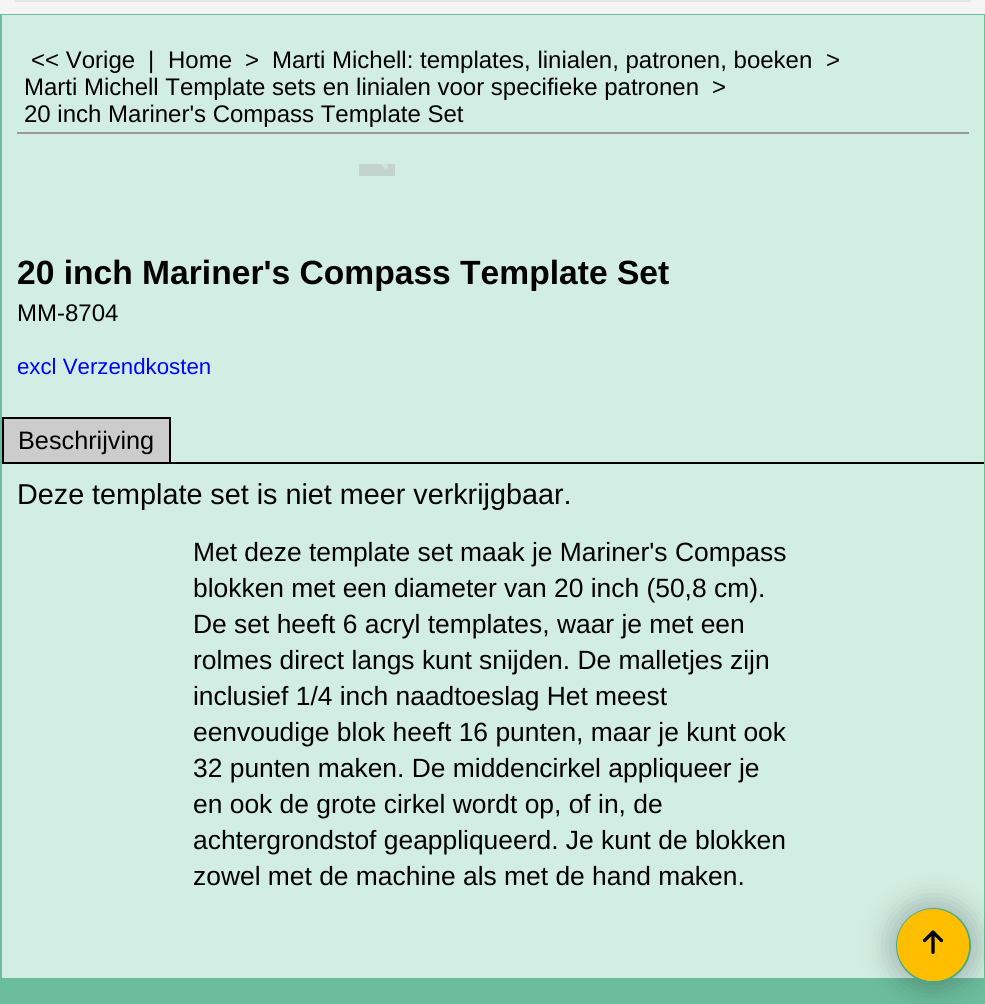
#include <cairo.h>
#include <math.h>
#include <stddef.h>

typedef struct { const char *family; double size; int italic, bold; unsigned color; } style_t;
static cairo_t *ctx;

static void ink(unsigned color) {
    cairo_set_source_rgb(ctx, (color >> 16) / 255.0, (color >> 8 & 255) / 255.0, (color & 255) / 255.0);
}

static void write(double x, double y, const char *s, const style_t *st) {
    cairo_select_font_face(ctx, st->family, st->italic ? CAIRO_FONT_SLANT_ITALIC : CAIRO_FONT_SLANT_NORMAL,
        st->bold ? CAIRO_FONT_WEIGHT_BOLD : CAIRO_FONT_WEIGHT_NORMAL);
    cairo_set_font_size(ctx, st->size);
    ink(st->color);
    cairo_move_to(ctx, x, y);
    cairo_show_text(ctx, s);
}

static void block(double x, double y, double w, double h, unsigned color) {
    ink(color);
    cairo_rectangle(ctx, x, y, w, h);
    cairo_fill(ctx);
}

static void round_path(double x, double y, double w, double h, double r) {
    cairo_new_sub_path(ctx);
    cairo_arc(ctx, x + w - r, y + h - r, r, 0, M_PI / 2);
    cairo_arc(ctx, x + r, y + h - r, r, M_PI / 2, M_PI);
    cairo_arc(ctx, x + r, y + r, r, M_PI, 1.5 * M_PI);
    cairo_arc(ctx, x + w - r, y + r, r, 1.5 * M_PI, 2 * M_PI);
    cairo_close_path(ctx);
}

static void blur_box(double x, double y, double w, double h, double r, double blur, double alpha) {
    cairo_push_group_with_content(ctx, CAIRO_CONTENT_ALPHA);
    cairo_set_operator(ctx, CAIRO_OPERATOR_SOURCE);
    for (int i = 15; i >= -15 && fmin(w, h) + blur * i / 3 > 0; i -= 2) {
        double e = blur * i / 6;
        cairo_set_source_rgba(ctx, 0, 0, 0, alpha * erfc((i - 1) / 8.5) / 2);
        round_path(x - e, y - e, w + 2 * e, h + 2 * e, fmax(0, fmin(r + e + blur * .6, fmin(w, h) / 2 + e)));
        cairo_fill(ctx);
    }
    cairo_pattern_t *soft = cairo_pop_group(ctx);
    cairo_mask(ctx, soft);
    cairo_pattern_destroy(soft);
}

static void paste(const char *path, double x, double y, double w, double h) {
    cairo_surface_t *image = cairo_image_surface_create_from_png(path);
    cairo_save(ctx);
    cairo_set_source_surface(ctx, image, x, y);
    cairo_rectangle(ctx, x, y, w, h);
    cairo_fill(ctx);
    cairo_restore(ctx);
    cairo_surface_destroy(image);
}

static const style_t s1 = {"Liberation Sans", 24, 0, 0, 0x000000};
static const style_t s2 = {"Liberation Sans", 33.6, 0, 1, 0x000000};
static const style_t s3 = {"Liberation Sans", 22.25, 0, 0, 0x0000ff};
static const style_t s4 = {"Liberation Sans", 25.25, 0, 0, 0x000000};
static const style_t s5 = {"Liberation Sans", 28.75, 0, 0, 0x000000};
static const style_t s6 = {"Liberation Sans", 26.4, 0, 0, 0x000000};

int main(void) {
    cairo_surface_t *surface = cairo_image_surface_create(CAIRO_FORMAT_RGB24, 985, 1004);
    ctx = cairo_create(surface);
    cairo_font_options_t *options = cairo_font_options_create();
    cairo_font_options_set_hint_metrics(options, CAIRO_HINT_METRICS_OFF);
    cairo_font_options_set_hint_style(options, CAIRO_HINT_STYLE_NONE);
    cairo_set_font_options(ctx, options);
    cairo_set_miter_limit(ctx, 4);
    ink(0x6cbd9e);
    cairo_paint(ctx);
    block(0, 0, 985, 14, 0xf5f5f6);
    cairo_rectangle(ctx, 16.5, -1.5, 953, 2);
    ink(0xe6e6e6);
    cairo_set_line_width(ctx, 3);
    cairo_stroke(ctx);
    block(2, 15, 982, 963, 0xd2ede3);
    block(17, 132, 952, 2, 0x999999);
    write(31, 68, "<< Vorige", &s1);
    write(148, 68, "|", &s1);
    write(168, 68, "Home", &s1);
    write(245, 68, ">", &s1);
    write(272, 68, "Marti Michell: templates, linialen, patronen, boeken", &s1);
    write(826, 68, ">", &s1);
    write(24, 95, "Marti Michell Template sets en linialen voor specifieke patronen", &s1);
    write(712, 95, ">", &s1);
    write(24, 122, "20 inch Mariner's Compass Template Set", &s1);
    block(359, 164, 36, 12, 0xc1d4cd);
    paste("pic1.png", 381, 164, 8, 6);
    write(17, 284, "20 inch Mariner's Compass Template Set", &s2);
    write(17, 321, "MM-8704", &s1);
    write(17, 374, "excl Verzendkosten", &s3);
    ink(0xcccccc);
    cairo_rectangle(ctx, 3, 418, 167, 45);
    cairo_fill_preserve(ctx);
    ink(0x000000);
    cairo_set_line_width(ctx, 2);
    cairo_stroke(ctx);
    write(18, 449, "Beschrijving", &s4);
    block(171, 462, 813, 2, 0x000000);
    write(17, 504, "Deze template set is niet meer verkrijgbaar.", &s5);
    write(193, 561, "Met deze template set maak je Mariner's Compass", &s6);
    write(193, 597, "blokken met een diameter van 20 inch (50,8 cm).", &s6);
    write(193, 633, "De set heeft 6 acryl templates, waar je met een", &s6);
    write(193, 669, "rolmes direct langs kunt snijden. De malletjes zijn", &s6);
    write(193, 705, "inclusief 1/4 inch naadtoeslag Het meest", &s6);
    write(193, 741, "eenvoudige blok heeft 16 punten, maar je kunt ook", &s6);
    write(193, 777, "32 punten maken. De middencirkel appliqueer je", &s6);
    write(193, 813, "en ook de grote cirkel wordt op, of in, de", &s6);
    write(193, 849, "achtergrondstof geappliqueerd. Je kunt de blokken", &s6);
    write(193, 885, "zowel met de machine als met de hand maken.", &s6);
    ink(0x000000);
    blur_box(887, 899, 93, 93, 46.5, 13, 0.2);
    ink(0xffbf00);
    cairo_arc(ctx, 933.5, 945.5, 36.5, 0, 2 * M_PI);
    cairo_fill_preserve(ctx);
    ink(0x48aa85);
    cairo_stroke(ctx);
    ink(0xffbf00);
    cairo_arc(ctx, 933, 945, 36, 0, 2 * M_PI);
    cairo_fill(ctx);
    paste("pic2.png", 922, 930, 22, 24);
    cairo_surface_write_to_png(surface, "screenshot.png");
    cairo_font_options_destroy(options);
    cairo_destroy(ctx);
    cairo_surface_destroy(surface);
    return 0;
}
